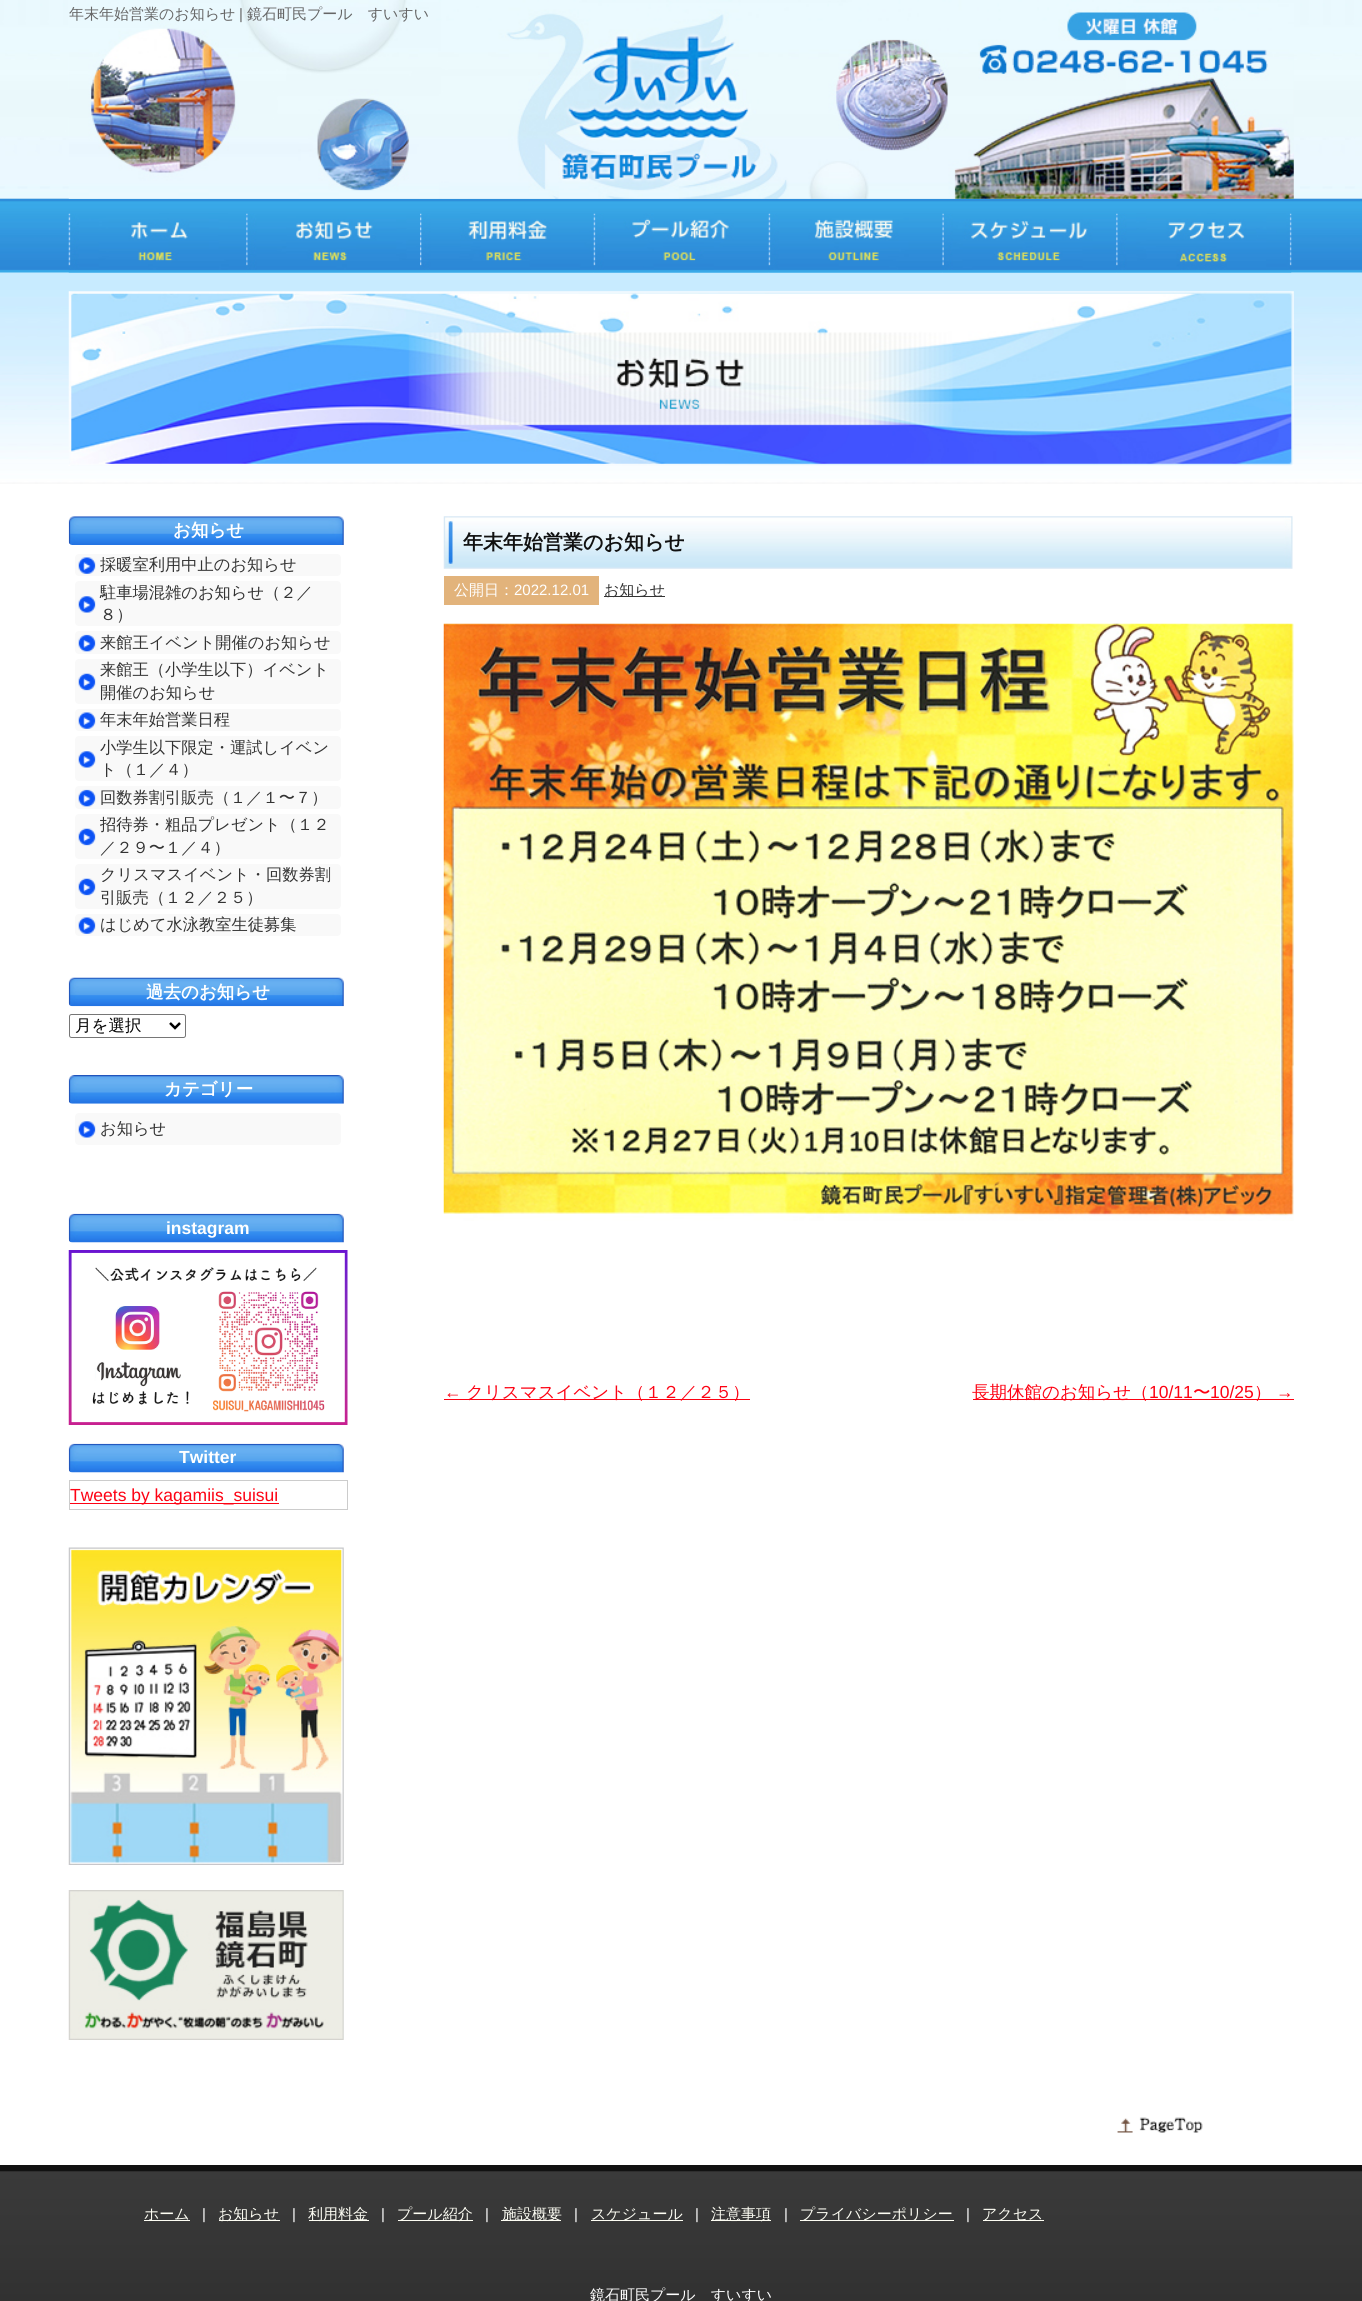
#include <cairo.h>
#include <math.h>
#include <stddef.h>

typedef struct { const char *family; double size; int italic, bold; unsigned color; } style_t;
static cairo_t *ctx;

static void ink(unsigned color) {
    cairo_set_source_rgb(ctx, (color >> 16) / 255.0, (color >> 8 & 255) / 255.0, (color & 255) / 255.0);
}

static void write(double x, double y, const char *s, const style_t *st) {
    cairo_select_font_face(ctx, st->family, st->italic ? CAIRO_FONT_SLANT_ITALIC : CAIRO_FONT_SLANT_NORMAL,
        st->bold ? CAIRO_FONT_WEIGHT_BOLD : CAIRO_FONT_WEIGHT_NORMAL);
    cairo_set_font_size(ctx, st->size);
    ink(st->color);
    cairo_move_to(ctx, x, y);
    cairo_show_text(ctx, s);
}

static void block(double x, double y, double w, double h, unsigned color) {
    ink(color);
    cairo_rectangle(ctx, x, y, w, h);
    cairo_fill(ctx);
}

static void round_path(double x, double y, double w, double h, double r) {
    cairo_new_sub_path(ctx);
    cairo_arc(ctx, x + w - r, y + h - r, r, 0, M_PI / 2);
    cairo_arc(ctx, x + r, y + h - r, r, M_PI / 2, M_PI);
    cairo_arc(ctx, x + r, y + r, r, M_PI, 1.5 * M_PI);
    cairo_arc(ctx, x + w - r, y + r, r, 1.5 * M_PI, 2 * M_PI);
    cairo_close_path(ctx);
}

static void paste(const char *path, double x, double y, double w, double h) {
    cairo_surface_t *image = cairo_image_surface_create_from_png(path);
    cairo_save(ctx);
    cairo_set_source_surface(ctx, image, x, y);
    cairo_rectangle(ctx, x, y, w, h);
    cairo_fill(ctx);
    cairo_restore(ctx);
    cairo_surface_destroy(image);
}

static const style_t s1 = {"WenQuanYi Zen Hei Medium", 15, 0, 0, 0x666666};
static const style_t s2 = {"Liberation Sans", 15, 0, 0, 0x666666};
static const style_t s3 = {"WenQuanYi Zen Hei", 17.5, 0, 1, 0xffffff};
static const style_t s4 = {"WenQuanYi Zen Hei Medium", 16.25, 0, 0, 0x333333};
static const style_t s5 = {"WenQuanYi Zen Hei Medium", 16.5, 0, 0, 0x000000};
static const style_t s6 = {"Liberation Sans", 17.5, 0, 1, 0xffffff};
static const style_t s7 = {"Liberation Sans", 17.5, 0, 0, 0xfd0213};
static const style_t s8 = {"WenQuanYi Zen Hei", 20, 0, 1, 0x111111};
static const style_t s9 = {"WenQuanYi Zen Hei Medium", 15, 0, 0, 0xffffff};
static const style_t s10 = {"Liberation Sans", 15, 0, 0, 0xffffff};
static const style_t s11 = {"WenQuanYi Zen Hei Medium", 15, 0, 0, 0x333333};
static const style_t s12 = {"WenQuanYi Zen Hei Medium", 17.5, 0, 0, 0xfd0213};
static const style_t s13 = {"WenQuanYi Zen Hei Medium", 15, 0, 0, 0xfefef4};

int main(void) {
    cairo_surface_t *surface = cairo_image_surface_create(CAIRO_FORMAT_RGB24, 1362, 2301);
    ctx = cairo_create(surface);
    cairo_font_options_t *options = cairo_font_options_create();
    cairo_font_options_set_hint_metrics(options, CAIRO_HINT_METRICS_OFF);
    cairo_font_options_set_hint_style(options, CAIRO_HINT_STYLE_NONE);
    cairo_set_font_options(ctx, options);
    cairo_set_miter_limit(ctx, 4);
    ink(0xffffff);
    cairo_paint(ctx);
    paste("pic1.png", 0, 0, 1362, 484);
    paste("pic2.png", 68, 0, 1226, 199);
    write(69, 19, "年末年始営業のお知らせ", &s1);
    write(239, 19, "|", &s2);
    write(247, 19, "鏡石町民プール　すいすい", &s1);
    paste("pic3.png", 68, 213, 179, 60);
    paste("pic4.png", 246, 213, 174, 60);
    paste("pic5.png", 420, 213, 174, 60);
    paste("pic6.png", 593, 213, 176, 60);
    paste("pic7.png", 768, 213, 175, 60);
    paste("pic8.png", 942, 213, 175, 60);
    paste("pic9.png", 1116, 213, 176, 60);
    paste("pic10.png", 68, 291, 1226, 175);
    paste("pic11.png", 68, 516, 276, 29);
    write(173, 536, "お知らせ", &s3);
    ink(0xf9f9f9);
    round_path(75, 554, 266, 22, 4);
    cairo_fill(ctx);
    paste("pic12.png", 78, 557, 18, 17);
    write(100, 570, "採暖室利用中止のお知らせ", &s4);
    ink(0xf9f9f9);
    round_path(75, 581, 266, 45, 4);
    cairo_fill(ctx);
    paste("pic13.png", 78, 596, 18, 17);
    write(100, 598, "駐車場混雑のお知らせ（２／", &s4);
    write(100, 620, "８）", &s4);
    ink(0xf9f9f9);
    round_path(75, 631, 266, 23, 4);
    cairo_fill(ctx);
    paste("pic14.png", 78, 634, 18, 18);
    write(100, 648, "来館王イベント開催のお知らせ", &s4);
    ink(0xf9f9f9);
    round_path(75, 659, 266, 45, 4);
    cairo_fill(ctx);
    paste("pic15.png", 78, 673, 18, 18);
    write(100, 675, "来館王（小学生以下）イベント", &s4);
    write(100, 698, "開催のお知らせ", &s4);
    ink(0xf9f9f9);
    round_path(75, 709, 266, 22, 4);
    cairo_fill(ctx);
    paste("pic12.png", 78, 712, 18, 17);
    write(100, 725, "年末年始営業日程", &s4);
    ink(0xf9f9f9);
    round_path(75, 736, 266, 45, 4);
    cairo_fill(ctx);
    paste("pic13.png", 78, 751, 18, 17);
    write(100, 753, "小学生以下限定・運試しイベン", &s4);
    write(100, 775, "ト（１／４）", &s4);
    ink(0xf9f9f9);
    round_path(75, 786, 266, 23, 4);
    cairo_fill(ctx);
    paste("pic14.png", 78, 789, 18, 18);
    write(100, 803, "回数券割引販売（１／１〜７）", &s4);
    ink(0xf9f9f9);
    round_path(75, 814, 266, 45, 4);
    cairo_fill(ctx);
    paste("pic15.png", 78, 828, 18, 18);
    write(100, 830, "招待券・粗品プレゼント（１２", &s4);
    write(100, 853, "／２９〜１／４）", &s4);
    ink(0xf9f9f9);
    round_path(75, 864, 266, 45, 4);
    cairo_fill(ctx);
    paste("pic15.png", 78, 878, 18, 18);
    write(100, 880, "クリスマスイベント・回数券割", &s4);
    write(100, 903, "引販売（１２／２５）", &s4);
    ink(0xf9f9f9);
    round_path(75, 914, 266, 22, 4);
    cairo_fill(ctx);
    paste("pic12.png", 78, 917, 18, 17);
    write(100, 930, "はじめて水泳教室生徒募集", &s4);
    paste("pic16.png", 68, 977, 276, 30);
    write(146, 998, "過去のお知らせ", &s3);
    round_path(69.5, 1014.5, 116, 23, 2);
    ink(0x767676);
    cairo_set_line_width(ctx, 1);
    cairo_stroke(ctx);
    cairo_new_path(ctx);
    cairo_move_to(ctx, 170, 1023);
    cairo_line_to(ctx, 175, 1028);
    cairo_line_to(ctx, 180, 1023);
    ink(0x000000);
    cairo_set_line_width(ctx, 2.5);
    cairo_stroke(ctx);
    write(75, 1031, "月を選択", &s5);
    paste("pic17.png", 68, 1075, 276, 29);
    write(164, 1095, "カテゴリー", &s3);
    ink(0xf9f9f9);
    round_path(75, 1113, 266, 32, 4);
    cairo_fill(ctx);
    paste("pic13.png", 78, 1121, 18, 17);
    write(100, 1134, "お知らせ", &s4);
    paste("pic18.png", 68, 1213, 276, 30);
    write(166, 1234, "instagram", &s6);
    paste("pic19.png", 68, 1250, 280, 175);
    paste("pic18.png", 68, 1443, 276, 30);
    write(179, 1463, "Twitter", &s6);
    cairo_rectangle(ctx, 69.5, 1480.5, 278, 29);
    ink(0xcccccc);
    cairo_set_line_width(ctx, 1);
    cairo_stroke(ctx);
    block(70, 1503, 209, 1, 0xfd0213);
    write(70, 1501, "Tweets by kagamiis_suisui", &s7);
    paste("pic20.png", 68, 1547, 276, 318);
    paste("pic21.png", 68, 1890, 276, 150);
    paste("pic22.png", 443, 516, 850, 53);
    write(463, 549, "年末年始営業のお知らせ", &s8);
    block(444, 576, 155, 29, 0xe2b37b);
    write(454, 595, "公開日：", &s9);
    write(514, 595, "2022.12.01", &s10);
    block(604, 596, 61, 1, 0x333333);
    write(604, 595, "お知らせ", &s11);
    paste("pic23.png", 443, 623, 851, 598);
    write(444, 1398, "←", &s7);
    block(444, 1399, 306, 1, 0xfd0213);
    write(466, 1398, "クリスマスイベント（１２／２５）", &s12);
    block(973, 1399, 321, 1, 0xfd0213);
    write(972, 1398, "長期休館のお知らせ（", &s12);
    write(1149, 1398, "10/11", &s7);
    write(1193, 1398, "〜", &s12);
    write(1210, 1398, "10/25", &s7);
    write(1254, 1398, "）", &s12);
    write(1276, 1398, "→", &s7);
    paste("pic24.png", 1117, 2117, 86, 16);
    paste("pic25.png", 0, 2165, 1362, 136);
    block(144, 2220, 46, 1, 0xfefef4);
    write(144, 2219, "ホーム", &s13);
    write(202, 2219, "|", &s10);
    block(219, 2220, 61, 1, 0xfefef4);
    write(218, 2219, "お知らせ", &s13);
    write(292, 2219, "|", &s10);
    block(309, 2220, 60, 1, 0xfefef4);
    write(308, 2219, "利用料金", &s13);
    write(381, 2219, "|", &s10);
    block(398, 2220, 75, 1, 0xfefef4);
    write(397, 2219, "プール紹介", &s13);
    write(485, 2219, "|", &s10);
    block(501, 2220, 60, 1, 0xfefef4);
    write(502, 2219, "施設概要", &s13);
    write(574, 2219, "|", &s10);
    block(591, 2220, 92, 1, 0xfefef4);
    write(591, 2219, "スケジュール", &s13);
    write(695, 2219, "|", &s10);
    block(711, 2220, 60, 1, 0xfefef4);
    write(711, 2219, "注意事項", &s13);
    write(784, 2219, "|", &s10);
    block(800, 2220, 154, 1, 0xfefef4);
    write(800, 2219, "プライバシーポリシー", &s13);
    write(966, 2219, "|", &s10);
    block(983, 2220, 61, 1, 0xfefef4);
    write(982, 2219, "アクセス", &s13);
    write(590, 2300, "鏡石町民プール　すいすい", &s9);
    cairo_surface_write_to_png(surface, "screenshot.png");
    cairo_font_options_destroy(options);
    cairo_destroy(ctx);
    cairo_surface_destroy(surface);
    return 0;
}
